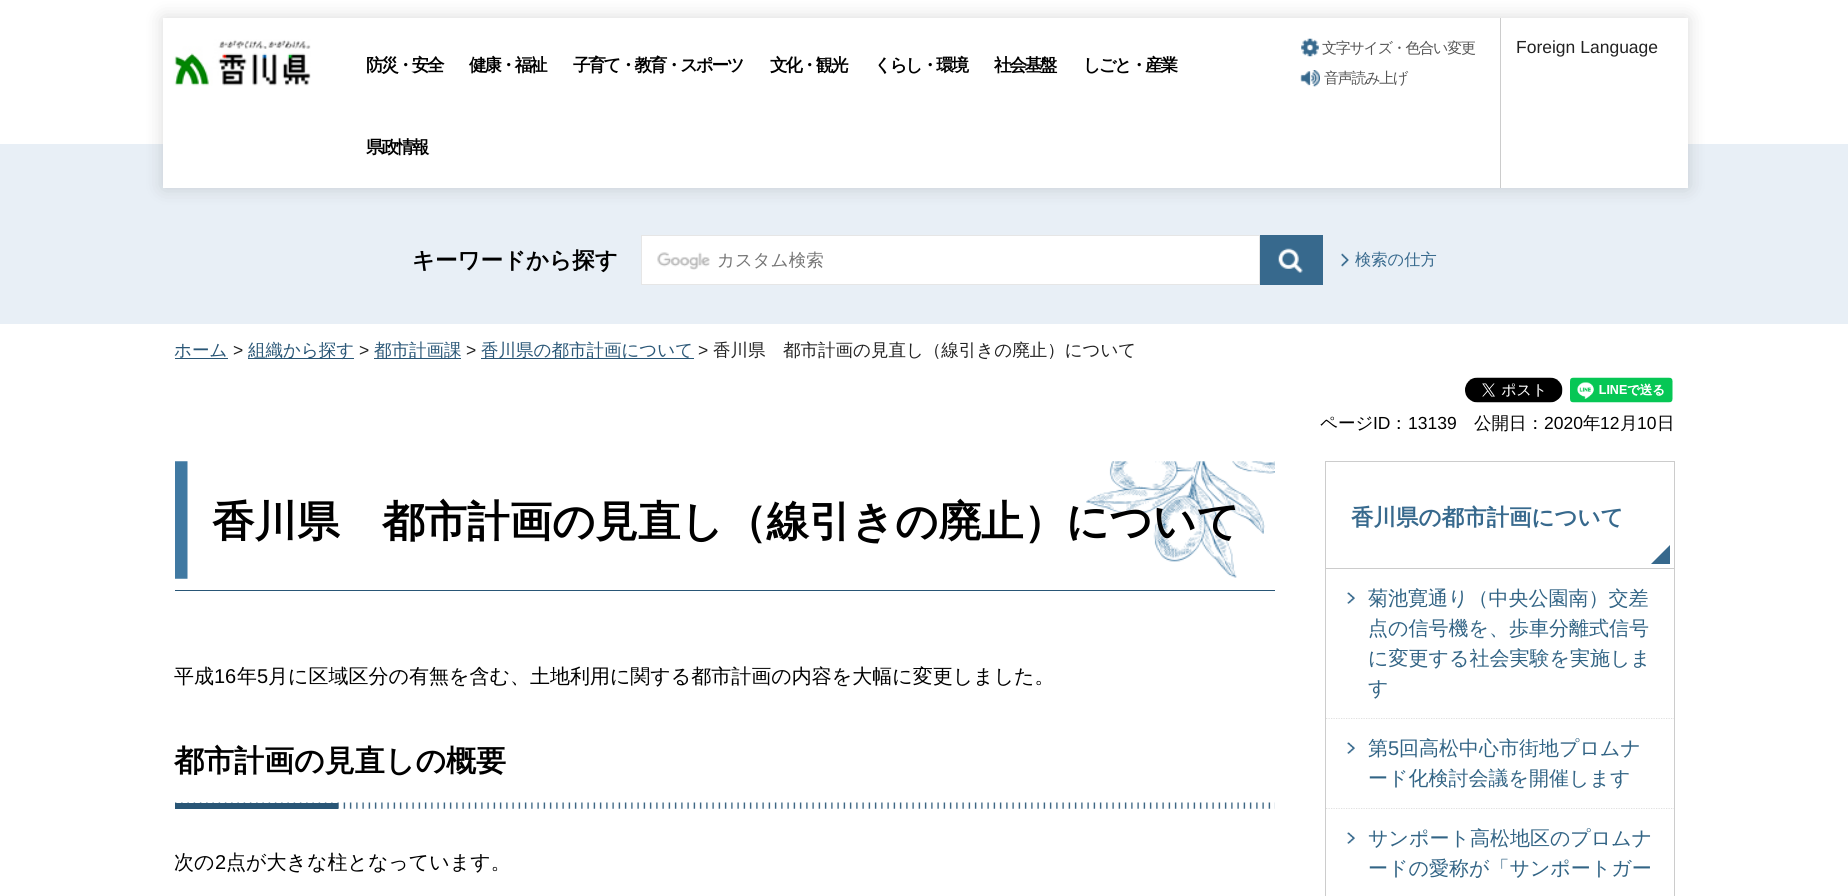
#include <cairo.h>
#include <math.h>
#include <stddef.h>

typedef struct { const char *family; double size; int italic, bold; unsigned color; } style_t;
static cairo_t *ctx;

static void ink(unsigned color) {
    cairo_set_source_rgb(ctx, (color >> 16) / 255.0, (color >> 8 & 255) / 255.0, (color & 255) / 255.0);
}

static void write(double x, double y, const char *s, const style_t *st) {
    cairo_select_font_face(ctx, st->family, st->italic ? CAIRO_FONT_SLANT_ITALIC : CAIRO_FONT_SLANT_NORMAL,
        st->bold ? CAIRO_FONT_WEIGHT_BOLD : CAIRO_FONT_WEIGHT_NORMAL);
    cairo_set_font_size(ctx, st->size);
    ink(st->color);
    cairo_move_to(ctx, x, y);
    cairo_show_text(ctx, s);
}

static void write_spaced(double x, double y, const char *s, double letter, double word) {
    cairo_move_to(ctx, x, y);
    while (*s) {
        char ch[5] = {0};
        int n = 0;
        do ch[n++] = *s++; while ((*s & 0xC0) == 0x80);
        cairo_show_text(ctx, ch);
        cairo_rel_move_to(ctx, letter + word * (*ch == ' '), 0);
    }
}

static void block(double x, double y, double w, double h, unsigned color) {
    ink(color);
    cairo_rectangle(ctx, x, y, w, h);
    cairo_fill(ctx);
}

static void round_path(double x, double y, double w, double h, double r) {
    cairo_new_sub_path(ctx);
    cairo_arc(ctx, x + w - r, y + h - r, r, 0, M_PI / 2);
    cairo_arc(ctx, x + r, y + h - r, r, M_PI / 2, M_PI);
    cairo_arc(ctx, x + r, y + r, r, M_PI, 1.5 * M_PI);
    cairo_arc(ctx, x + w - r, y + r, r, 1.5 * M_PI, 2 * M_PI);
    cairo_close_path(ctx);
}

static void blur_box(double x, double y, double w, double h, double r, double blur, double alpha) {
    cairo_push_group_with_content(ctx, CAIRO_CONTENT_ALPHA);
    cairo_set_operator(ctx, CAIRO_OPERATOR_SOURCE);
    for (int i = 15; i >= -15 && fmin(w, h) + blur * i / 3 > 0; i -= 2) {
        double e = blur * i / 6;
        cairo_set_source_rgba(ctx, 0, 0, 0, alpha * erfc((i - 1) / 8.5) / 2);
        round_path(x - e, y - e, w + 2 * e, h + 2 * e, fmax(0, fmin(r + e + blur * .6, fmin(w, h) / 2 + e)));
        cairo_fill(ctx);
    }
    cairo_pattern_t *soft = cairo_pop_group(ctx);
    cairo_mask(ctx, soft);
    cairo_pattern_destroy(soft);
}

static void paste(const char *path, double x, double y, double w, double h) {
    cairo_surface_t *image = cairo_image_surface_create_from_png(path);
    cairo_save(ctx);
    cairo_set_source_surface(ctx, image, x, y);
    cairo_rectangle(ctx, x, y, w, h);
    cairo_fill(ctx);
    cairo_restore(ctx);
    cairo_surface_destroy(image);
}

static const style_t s1 = {"Liberation Sans", 17.5, 0, 0, 0x222222};
static const style_t s2 = {"WenQuanYi Zen Hei", 22.5, 0, 1, 0x000000};
static const style_t s3 = {"WenQuanYi Zen Hei Medium", 17.5, 0, 0, 0x757575};
static const style_t s4 = {"WenQuanYi Zen Hei Medium", 16.25, 0, 0, 0x37698d};
static const style_t s5 = {"WenQuanYi Zen Hei Medium", 17.5, 0, 0, 0x295676};
static const style_t s6 = {"WenQuanYi Zen Hei Medium", 17.5, 0, 0, 0x222222};
static const style_t s7 = {"WenQuanYi Zen Hei Medium", 17.5, 0, 0, 0x000000};
static const style_t s8 = {"Liberation Sans", 17.5, 0, 0, 0x000000};
static const style_t s9 = {"WenQuanYi Zen Hei", 42.5, 0, 1, 0x000000};
static const style_t s10 = {"WenQuanYi Zen Hei Medium", 20, 0, 0, 0x000000};
static const style_t s11 = {"Liberation Sans", 20, 0, 0, 0x000000};
static const style_t s12 = {"WenQuanYi Zen Hei", 30, 0, 1, 0x000000};
static const style_t s13 = {"WenQuanYi Zen Hei", 22.5, 0, 1, 0x37698d};
static const style_t s14 = {"WenQuanYi Zen Hei Medium", 20, 0, 0, 0x326485};
static const style_t s15 = {"Liberation Sans", 20, 0, 0, 0x326485};

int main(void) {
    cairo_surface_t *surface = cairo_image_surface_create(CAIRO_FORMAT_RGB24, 1848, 896);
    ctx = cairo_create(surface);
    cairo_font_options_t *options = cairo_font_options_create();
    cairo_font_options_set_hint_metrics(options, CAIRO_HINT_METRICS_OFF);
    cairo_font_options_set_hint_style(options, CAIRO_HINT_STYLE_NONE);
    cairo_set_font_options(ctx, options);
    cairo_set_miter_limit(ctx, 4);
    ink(0xffffff);
    cairo_paint(ctx);
    block(0, 144, 1848, 180, 0xe8eff6);
    ink(0x000000);
    blur_box(163, 18, 1525, 170, 0, 9.5, 0.15);
    block(163, 18, 1525, 170, 0xffffff);
    paste("pic1.png", 173, 39, 138, 47);
    paste("pic2.png", 1301, 38, 18, 19);
    cairo_select_font_face(ctx, "WenQuanYi Zen Hei Medium", CAIRO_FONT_SLANT_NORMAL, CAIRO_FONT_WEIGHT_NORMAL);
    cairo_set_font_size(ctx, 15);
    ink(0x555555);
    write_spaced(1322, 53, "文字サイズ・色合い変更", -1.25, 0);
    paste("pic3.png", 1300, 70, 20, 17);
    write_spaced(1324, 83, "音声読み上げ", -1.25, 0);
    block(1500, 18, 1, 170, 0xcccccc);
    write(1516, 53, "Foreign Language", &s1);
    cairo_select_font_face(ctx, "WenQuanYi Zen Hei", CAIRO_FONT_SLANT_NORMAL, CAIRO_FONT_WEIGHT_BOLD);
    ink(0x000000);
    write_spaced(366, 71, "防災・安全", -2.25, 0);
    write_spaced(469, 71, "健康・福祉", -2.25, 0);
    write_spaced(573, 71, "子育て・教育・スポーツ", -2.25, 0);
    write_spaced(770, 71, "文化・観光", -2.25, 0);
    write_spaced(874, 71, "くらし・環境", -2.25, 0);
    write_spaced(994, 71, "社会基盤", -2.25, 0);
    write_spaced(1083, 71, "しごと・産業", -2.25, 0);
    write_spaced(366, 153, "県政情報", -2.25, 0);
    write(412, 268, "キーワードから探す", &s2);
    block(642, 236, 617, 48, 0xffffff);
    paste("pic4.png", 657, 252, 53, 18);
    cairo_rectangle(ctx, 641.5, 235.5, 618, 49);
    ink(0xe6e6e6);
    cairo_set_line_width(ctx, 1);
    cairo_stroke(ctx);
    write(717, 266, "カスタム検索", &s3);
    block(1260, 235, 63, 50, 0x37698d);
    paste("pic5.png", 1278, 248, 25, 25);
    paste("pic6.png", 1341, 253, 8, 14);
    write(1355, 265, "検索の仕方", &s4);
    write(174, 356, "ホーム", &s5);
    block(175, 358, 53, 1, 0x295676);
    write(233, 356, ">", &s1);
    block(248, 358, 106, 1, 0x295676);
    write(248, 356, "組織から探す", &s5);
    write(359, 356, ">", &s1);
    block(374, 358, 87, 1, 0x295676);
    write(374, 356, "都市計画課", &s5);
    write(466, 356, ">", &s1);
    block(481, 358, 213, 1, 0x295676);
    write(481, 356, "香川県の都市計画について", &s5);
    write(698, 356, ">", &s1);
    write(713, 356, "香川県　都市計画の見直し（線引きの廃止）について", &s6);
    paste("pic7.png", 1465, 377, 98, 26);
    paste("pic8.png", 1570, 377, 103, 26);
    write(1320, 429, "ページ", &s7);
    write(1373, 429, "ID", &s8);
    write(1390, 429, "：", &s7);
    write(1408, 429, "13139", &s8);
    write(1474, 429, "公開日：", &s7);
    write(1544, 429, "2020", &s8);
    write(1583, 429, "年", &s7);
    write(1600, 429, "12", &s8);
    write(1620, 429, "月", &s7);
    write(1637, 429, "10", &s8);
    write(1657, 429, "日", &s7);
    paste("pic9.png", 175, 461, 1100, 118);
    block(175, 590, 1100, 1, 0x295676);
    write(212, 536, "香川県　都市計画の見直し（線引きの廃止）について", &s9);
    write(174, 683, "平成", &s10);
    write(214, 683, "16", &s11);
    write(237, 683, "年", &s10);
    write(257, 683, "5", &s11);
    write(268, 683, "月に区域区分の有無を含む、土地利用に関する都市計画の内容を大幅に変更しました。", &s10);
    paste("pic10.png", 175, 802, 1100, 7);
    write(174, 771, "都市計画の見直しの概要", &s12);
    block(175, 803, 163, 6, 0x295676);
    write(174, 869, "次の", &s10);
    write(215, 869, "2", &s11);
    write(226, 869, "点が大きな柱となっています。", &s10);
    cairo_rectangle(ctx, 1325.5, 461.5, 349, 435);
    ink(0xcccccc);
    cairo_stroke(ctx);
    block(1326, 568, 348, 1, 0xcccccc);
    write(1351, 525, "香川県の都市計画について", &s13);
    cairo_new_path(ctx);
    cairo_move_to(ctx, 1670, 564);
    cairo_line_to(ctx, 1651, 564);
    cairo_line_to(ctx, 1670, 545);
    cairo_close_path(ctx);
    cairo_fill(ctx);
    cairo_new_path(ctx);
    cairo_move_to(ctx, 1326, 718);
    cairo_line_to(ctx, 1674, 718);
    ink(0xcccccc);
    cairo_set_line_width(ctx, 1.2);
    cairo_set_dash(ctx, (double[]){1.25, 1.25}, 2, 0);
    cairo_stroke(ctx);
    block(1326, 717, 348, 1, 0xffffff);
    paste("pic11.png", 1347, 592, 8, 12);
    write(1368, 605, "菊池寛通り（中央公園南）交差", &s14);
    write(1368, 635, "点の信号機を、歩車分離式信号", &s14);
    write(1368, 665, "に変更する社会実験を実施しま", &s14);
    write(1368, 695, "す", &s14);
    cairo_new_path(ctx);
    cairo_move_to(ctx, 1326, 808);
    cairo_line_to(ctx, 1674, 808);
    ink(0xcccccc);
    cairo_stroke(ctx);
    block(1326, 807, 348, 1, 0xffffff);
    paste("pic11.png", 1347, 742, 8, 12);
    write(1368, 755, "第", &s14);
    write(1388, 755, "5", &s15);
    write(1399, 755, "回高松中心市街地プロムナ", &s14);
    write(1368, 785, "ード化検討会議を開催します", &s14);
    paste("pic11.png", 1347, 832, 8, 12);
    write(1368, 845, "サンポート高松地区のプロムナ", &s14);
    write(1368, 875, "ードの愛称が「サンポートガー", &s14);
    cairo_surface_write_to_png(surface, "screenshot.png");
    cairo_font_options_destroy(options);
    cairo_destroy(ctx);
    cairo_surface_destroy(surface);
    return 0;
}
